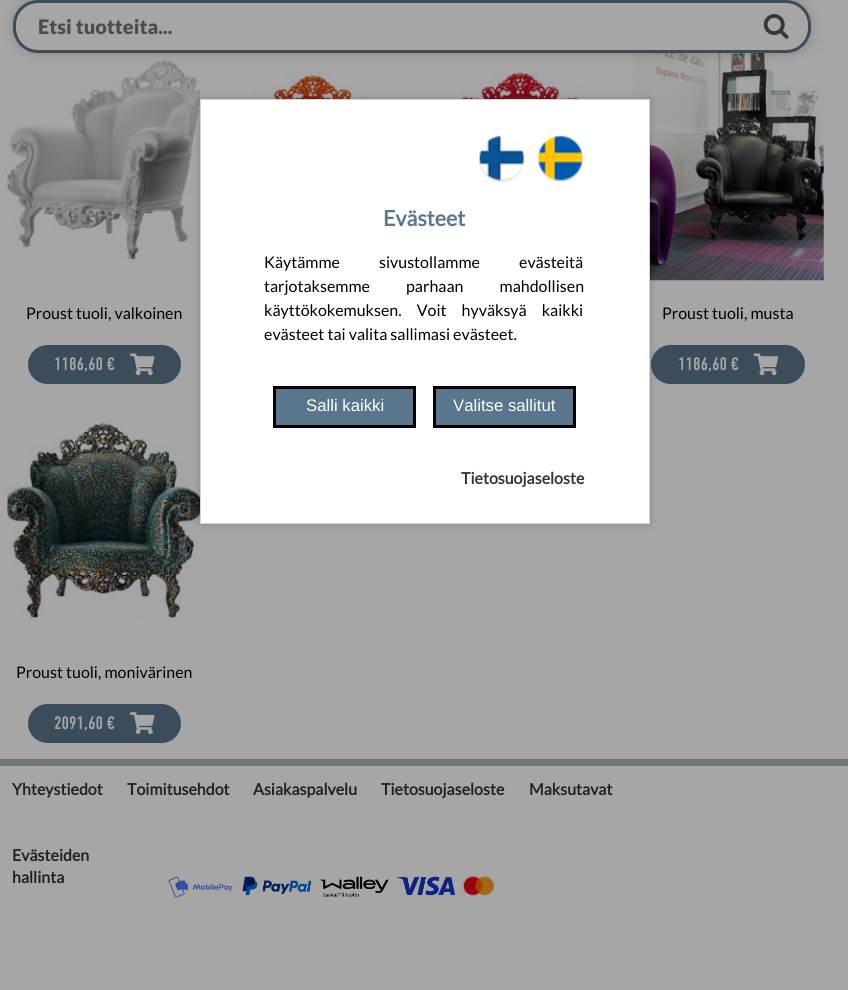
#include <cairo.h>
#include <math.h>
#include <stddef.h>

typedef struct { const char *family; double size; int italic, bold; unsigned color; } style_t;
static cairo_t *ctx;

static void ink(unsigned color) {
    cairo_set_source_rgb(ctx, (color >> 16) / 255.0, (color >> 8 & 255) / 255.0, (color & 255) / 255.0);
}

static void write(double x, double y, const char *s, const style_t *st) {
    cairo_select_font_face(ctx, st->family, st->italic ? CAIRO_FONT_SLANT_ITALIC : CAIRO_FONT_SLANT_NORMAL,
        st->bold ? CAIRO_FONT_WEIGHT_BOLD : CAIRO_FONT_WEIGHT_NORMAL);
    cairo_set_font_size(ctx, st->size);
    ink(st->color);
    cairo_move_to(ctx, x, y);
    cairo_show_text(ctx, s);
}

static void write_spaced(double x, double y, const char *s, double letter, double word) {
    cairo_move_to(ctx, x, y);
    while (*s) {
        char ch[5] = {0};
        int n = 0;
        do ch[n++] = *s++; while ((*s & 0xC0) == 0x80);
        cairo_show_text(ctx, ch);
        cairo_rel_move_to(ctx, letter + word * (*ch == ' '), 0);
    }
}

static void block(double x, double y, double w, double h, unsigned color) {
    ink(color);
    cairo_rectangle(ctx, x, y, w, h);
    cairo_fill(ctx);
}

static void round_path(double x, double y, double w, double h, double r) {
    cairo_new_sub_path(ctx);
    cairo_arc(ctx, x + w - r, y + h - r, r, 0, M_PI / 2);
    cairo_arc(ctx, x + r, y + h - r, r, M_PI / 2, M_PI);
    cairo_arc(ctx, x + r, y + r, r, M_PI, 1.5 * M_PI);
    cairo_arc(ctx, x + w - r, y + r, r, 1.5 * M_PI, 2 * M_PI);
    cairo_close_path(ctx);
}

static void blur_box(double x, double y, double w, double h, double r, double blur, double alpha) {
    cairo_push_group_with_content(ctx, CAIRO_CONTENT_ALPHA);
    cairo_set_operator(ctx, CAIRO_OPERATOR_SOURCE);
    for (int i = 15; i >= -15 && fmin(w, h) + blur * i / 3 > 0; i -= 2) {
        double e = blur * i / 6;
        cairo_set_source_rgba(ctx, 0, 0, 0, alpha * erfc((i - 1) / 8.5) / 2);
        round_path(x - e, y - e, w + 2 * e, h + 2 * e, fmax(0, fmin(r + e + blur * .6, fmin(w, h) / 2 + e)));
        cairo_fill(ctx);
    }
    cairo_pattern_t *soft = cairo_pop_group(ctx);
    cairo_mask(ctx, soft);
    cairo_pattern_destroy(soft);
}

static void paste(const char *path, double x, double y, double w, double h) {
    cairo_surface_t *image = cairo_image_surface_create_from_png(path);
    cairo_save(ctx);
    cairo_set_source_surface(ctx, image, x, y);
    cairo_rectangle(ctx, x, y, w, h);
    cairo_fill(ctx);
    cairo_restore(ctx);
    cairo_surface_destroy(image);
}

static const style_t s1 = {"Lato Black", 20, 0, 0, 0x4c4c4c};
static const style_t s2 = {"Lato", 16, 0, 0, 0x000000};
static const style_t s3 = {"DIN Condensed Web", 18, 0, 0, 0xa6a6a6};
static const style_t s4 = {"Lato", 16, 0, 1, 0x212121};
static const style_t s5 = {"Lato", 21.5, 0, 1, 0x5a768c};
static const style_t s6 = {"Liberation Sans", 16.75, 0, 0, 0xffffff};
static const style_t s7 = {"Lato", 16, 0, 1, 0x333333};

int main(void) {
    cairo_surface_t *surface = cairo_image_surface_create(CAIRO_FORMAT_RGB24, 848, 990);
    ctx = cairo_create(surface);
    cairo_font_options_t *options = cairo_font_options_create();
    cairo_font_options_set_hint_metrics(options, CAIRO_HINT_METRICS_OFF);
    cairo_font_options_set_hint_style(options, CAIRO_HINT_STYLE_NONE);
    cairo_set_font_options(ctx, options);
    cairo_set_miter_limit(ctx, 4);
    ink(0x70787c);
    cairo_paint(ctx);
    block(0, 0, 848, 759, 0xa6a6a6);
    paste("pic2.png", 222, 71, 186, 28);
    paste("pic3.png", 430, 71, 185, 28);
    paste("pic4.png", 7, 60, 193, 201);
    paste("pic6.png", 632, 40, 192, 241);
    ink(0x000000);
    blur_box(13, 0, 798, 53, 25, 6, 0.2);
    ink(0xa6a6a6);
    round_path(14.5, 1.5, 795, 50, 23.5);
    cairo_fill_preserve(ctx);
    ink(0x3b4d5b);
    cairo_set_line_width(ctx, 3);
    cairo_stroke(ctx);
    write(38, 34, "Etsi tuotteita...", &s1);
    paste("pic1.png", 763, 14, 26, 25);
    write(26, 319, "Proust tuoli, valkoinen", &s2);
    ink(0x3b4d5b);
    round_path(28, 345, 153, 39, 19.5);
    cairo_fill(ctx);
    write(54, 370, "1186,60 €", &s3);
    paste("pic5.png", 130, 353, 25, 23);
    write(662, 319, "Proust tuoli, musta", &s2);
    ink(0x3b4d5b);
    round_path(651, 345, 154, 39, 19.5);
    cairo_fill(ctx);
    write(678, 370, "1186,60 €", &s3);
    paste("pic7.png", 753, 353, 26, 23);
    paste("pic8.png", 7, 416, 193, 207);
    write(16, 678, "Proust tuoli, monivärinen", &s2);
    ink(0x3b4d5b);
    round_path(28, 704, 153, 39, 19.5);
    cairo_fill(ctx);
    write(54, 729, "2091,60 €", &s3);
    paste("pic9.png", 130, 712, 25, 22);
    block(0, 766, 848, 224, 0xa6a6a6);
    write(12, 795, "Yhteystiedot", &s4);
    write(127, 795, "Toimitusehdot", &s4);
    write(253, 795, "Asiakaspalvelu", &s4);
    write(381, 795, "Tietosuojaseloste", &s4);
    write(529, 795, "Maksutavat", &s4);
    write(12, 861, "Evästeiden", &s4);
    write(12, 883, "hallinta", &s4);
    paste("pic10.png", 168, 876, 65, 22);
    paste("pic11.png", 242, 876, 70, 20);
    paste("pic12.png", 320, 876, 69, 22);
    paste("pic13.png", 397, 876, 58, 20);
    paste("pic14.png", 463, 876, 31, 20);
    ink(0x000000);
    blur_box(200, 99, 450, 425, 0, 4, 0.2);
    ink(0xffffff);
    cairo_rectangle(ctx, 200.5, 99.5, 449, 424);
    cairo_fill_preserve(ctx);
    ink(0xd3d3d3);
    cairo_set_line_width(ctx, 1);
    cairo_stroke(ctx);
    paste("pic15.png", 479, 135, 46, 48);
    paste("pic16.png", 537, 135, 47, 48);
    write(383, 226, "Evästeet", &s5);
    cairo_select_font_face(ctx, "Lato", CAIRO_FONT_SLANT_NORMAL, CAIRO_FONT_WEIGHT_NORMAL);
    cairo_set_font_size(ctx, 16);
    ink(0x000000);
    write_spaced(264, 268, "Käytämme sivustollamme evästeitä", 0, 36);
    write_spaced(264, 292, "tarjotaksemme parhaan mahdollisen", 0, 33);
    write_spaced(264, 316, "käyttökokemuksen. Voit hyväksyä kaikki", 0, 12);
    write(264, 340, "evästeet tai valita sallimasi evästeet.", &s2);
    ink(0x5a768c);
    cairo_rectangle(ctx, 274.5, 387.5, 140, 39);
    cairo_fill_preserve(ctx);
    ink(0x000000);
    cairo_set_line_width(ctx, 3);
    cairo_stroke(ctx);
    write(306, 411, "Salli kaikki", &s6);
    ink(0x5a768c);
    cairo_rectangle(ctx, 434.5, 387.5, 140, 39);
    cairo_fill_preserve(ctx);
    ink(0x000000);
    cairo_stroke(ctx);
    write(453, 411, "Valitse sallitut", &s6);
    write(461, 484, "Tietosuojaseloste", &s7);
    cairo_surface_write_to_png(surface, "screenshot.png");
    cairo_font_options_destroy(options);
    cairo_destroy(ctx);
    cairo_surface_destroy(surface);
    return 0;
}
